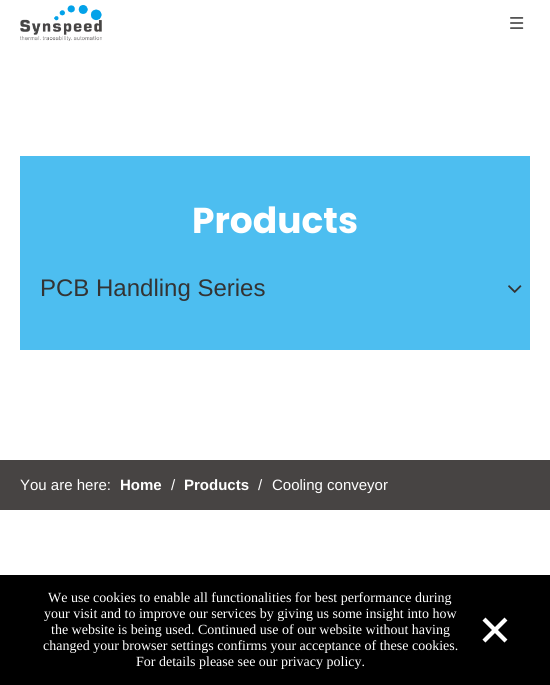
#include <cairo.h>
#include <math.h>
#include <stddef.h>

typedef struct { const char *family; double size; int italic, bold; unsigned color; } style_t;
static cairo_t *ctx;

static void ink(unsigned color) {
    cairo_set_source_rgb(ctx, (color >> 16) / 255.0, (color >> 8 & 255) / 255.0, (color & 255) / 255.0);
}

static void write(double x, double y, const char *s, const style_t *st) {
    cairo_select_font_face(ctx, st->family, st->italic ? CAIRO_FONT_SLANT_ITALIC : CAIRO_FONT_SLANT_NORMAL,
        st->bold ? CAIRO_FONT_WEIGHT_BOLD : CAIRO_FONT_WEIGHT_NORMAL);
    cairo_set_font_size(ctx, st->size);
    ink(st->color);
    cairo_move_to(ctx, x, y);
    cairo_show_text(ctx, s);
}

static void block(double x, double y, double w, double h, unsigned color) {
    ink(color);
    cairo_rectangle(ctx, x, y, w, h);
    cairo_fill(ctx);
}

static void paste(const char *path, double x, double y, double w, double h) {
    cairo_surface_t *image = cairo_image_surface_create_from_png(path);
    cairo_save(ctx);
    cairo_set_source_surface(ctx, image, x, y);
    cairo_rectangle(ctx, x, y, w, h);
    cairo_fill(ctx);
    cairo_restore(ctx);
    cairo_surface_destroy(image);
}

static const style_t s1 = {"Poppins", 36, 0, 1, 0xffffff};
static const style_t s2 = {"Liberation Sans", 24, 0, 0, 0x333333};
static const style_t s3 = {"Liberation Sans", 15, 0, 0, 0xffffff};
static const style_t s4 = {"Liberation Sans", 15, 0, 1, 0xffffff};
static const style_t s5 = {"Liberation Serif", 14, 0, 0, 0xffffff};
static const style_t s6 = {"Liberation Serif", 60, 0, 1, 0xffffff};

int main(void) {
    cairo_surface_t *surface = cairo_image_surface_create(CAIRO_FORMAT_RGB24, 550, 685);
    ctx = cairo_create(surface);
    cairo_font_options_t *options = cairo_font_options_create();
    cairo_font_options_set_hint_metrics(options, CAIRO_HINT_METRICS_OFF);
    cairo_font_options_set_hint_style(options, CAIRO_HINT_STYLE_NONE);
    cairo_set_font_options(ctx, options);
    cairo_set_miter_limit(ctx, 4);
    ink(0xffffff);
    cairo_paint(ctx);
    paste("pic1.png", 20, 5, 82, 36);
    paste("pic2.png", 510, 17, 14, 12);
    block(20, 156, 510, 194, 0x4dbef0);
    write(192, 233, "Products", &s1);
    write(40, 296, "PCB Handling Series", &s2);
    paste("pic3.png", 508, 285, 14, 8);
    block(0, 460, 550, 50, 0x474443);
    write(20, 490, "You are here:", &s3);
    write(120, 490, "Home", &s4);
    write(171, 490, "/", &s3);
    write(184, 490, "Products", &s4);
    write(258, 490, "/", &s3);
    write(272, 490, "Cooling conveyor", &s3);
    block(0, 575, 550, 110, 0x000000);
    write(48, 602, "We use cookies to enable all functionalities for best performance during", &s5);
    write(44, 618, "your visit and to improve our services by giving us some insight into how", &s5);
    write(51, 634, "the website is being used. Continued use of our website without having", &s5);
    write(43, 650, "changed your browser settings confirms your acceptance of these cookies.", &s5);
    write(136, 666, "For details please see our privacy policy.", &s5);
    write(478, 650, "×", &s6);
    cairo_surface_write_to_png(surface, "screenshot.png");
    cairo_font_options_destroy(options);
    cairo_destroy(ctx);
    cairo_surface_destroy(surface);
    return 0;
}
